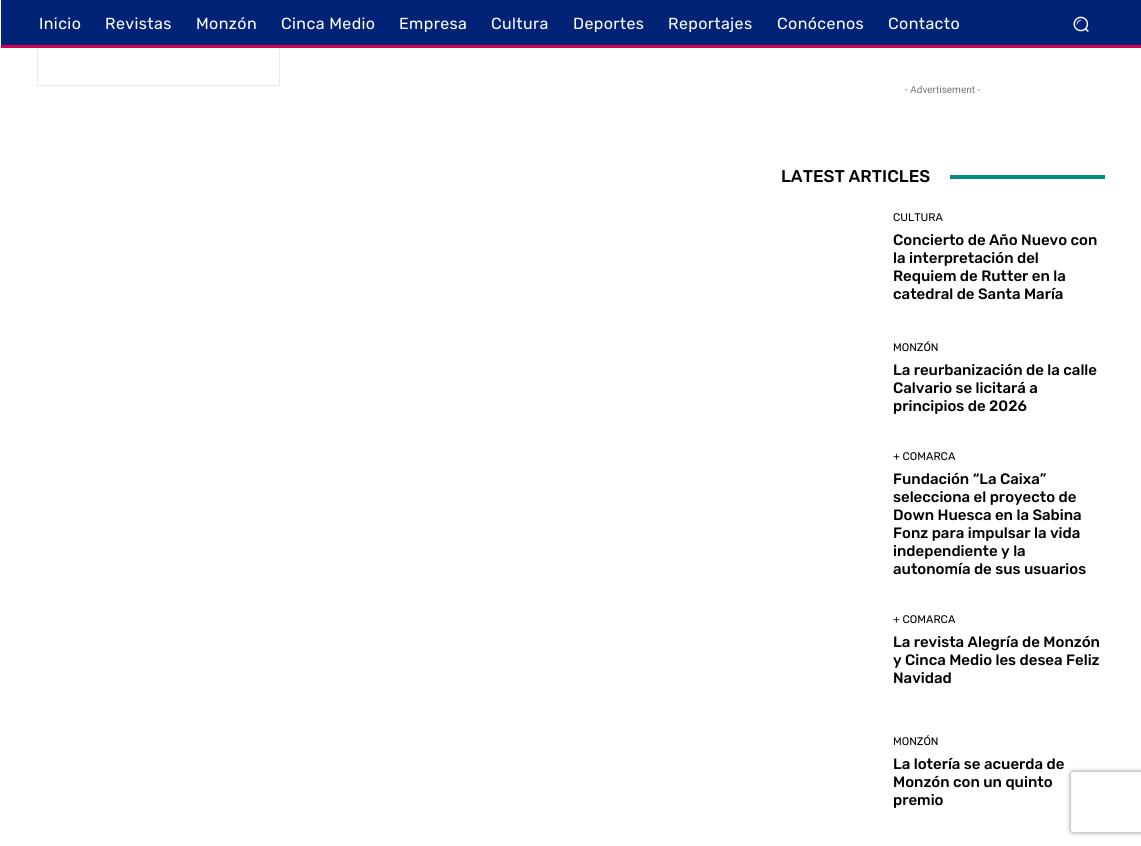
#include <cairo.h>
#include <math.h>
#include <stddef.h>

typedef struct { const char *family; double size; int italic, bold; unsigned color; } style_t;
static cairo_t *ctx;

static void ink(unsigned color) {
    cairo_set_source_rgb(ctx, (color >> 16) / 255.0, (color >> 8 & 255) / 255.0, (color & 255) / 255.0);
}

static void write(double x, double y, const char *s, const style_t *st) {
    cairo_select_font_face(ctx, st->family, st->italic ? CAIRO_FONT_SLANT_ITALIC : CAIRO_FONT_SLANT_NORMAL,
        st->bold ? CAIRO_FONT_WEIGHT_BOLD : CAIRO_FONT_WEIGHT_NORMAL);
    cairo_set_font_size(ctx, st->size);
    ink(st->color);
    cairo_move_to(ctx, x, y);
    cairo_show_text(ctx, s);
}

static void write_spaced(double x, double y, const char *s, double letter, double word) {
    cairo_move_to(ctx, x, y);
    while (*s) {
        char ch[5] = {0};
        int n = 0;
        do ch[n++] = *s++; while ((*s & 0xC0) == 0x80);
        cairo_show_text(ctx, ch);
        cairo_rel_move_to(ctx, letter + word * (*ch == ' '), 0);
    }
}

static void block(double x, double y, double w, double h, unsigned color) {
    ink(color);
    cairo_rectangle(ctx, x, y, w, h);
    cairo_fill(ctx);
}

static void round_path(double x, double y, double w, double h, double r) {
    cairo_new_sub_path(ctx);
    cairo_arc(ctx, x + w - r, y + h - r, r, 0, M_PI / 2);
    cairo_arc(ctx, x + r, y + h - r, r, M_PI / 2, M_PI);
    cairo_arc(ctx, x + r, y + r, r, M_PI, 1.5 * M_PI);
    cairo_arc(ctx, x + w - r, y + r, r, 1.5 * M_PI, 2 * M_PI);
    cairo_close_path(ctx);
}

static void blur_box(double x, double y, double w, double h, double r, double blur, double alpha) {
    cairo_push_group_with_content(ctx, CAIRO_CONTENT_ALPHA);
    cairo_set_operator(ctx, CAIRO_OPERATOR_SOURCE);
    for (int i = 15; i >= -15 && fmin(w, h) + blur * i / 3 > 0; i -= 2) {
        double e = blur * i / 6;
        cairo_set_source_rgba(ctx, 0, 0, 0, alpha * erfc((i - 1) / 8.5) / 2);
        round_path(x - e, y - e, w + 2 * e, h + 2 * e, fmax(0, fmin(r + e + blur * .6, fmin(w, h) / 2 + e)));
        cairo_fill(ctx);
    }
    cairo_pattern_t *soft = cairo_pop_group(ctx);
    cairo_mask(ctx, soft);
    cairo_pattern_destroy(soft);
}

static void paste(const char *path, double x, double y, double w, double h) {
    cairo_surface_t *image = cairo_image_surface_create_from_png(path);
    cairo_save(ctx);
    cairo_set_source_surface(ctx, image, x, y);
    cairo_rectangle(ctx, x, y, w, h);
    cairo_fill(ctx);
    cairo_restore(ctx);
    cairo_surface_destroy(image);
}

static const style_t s1 = {"Roboto", 10, 0, 0, 0x767676};
static const style_t s2 = {"Rubik Medium", 17, 0, 0, 0x000000};
static const style_t s3 = {"Rubik", 11, 0, 0, 0x000000};
static const style_t s4 = {"Rubik Medium", 15, 0, 0, 0x000000};

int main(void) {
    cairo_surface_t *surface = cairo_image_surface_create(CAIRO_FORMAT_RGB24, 1141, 846);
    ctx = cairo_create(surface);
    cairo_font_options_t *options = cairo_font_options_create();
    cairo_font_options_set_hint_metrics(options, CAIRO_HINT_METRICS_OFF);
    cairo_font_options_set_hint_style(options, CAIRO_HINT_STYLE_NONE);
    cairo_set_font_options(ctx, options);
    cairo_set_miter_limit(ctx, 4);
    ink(0xffffff);
    cairo_paint(ctx);
    cairo_rectangle(ctx, 37.5, 6.5, 242, 79);
    ink(0xe8e8e8);
    cairo_set_line_width(ctx, 1);
    cairo_stroke(ctx);
    block(1, 0, 1140, 45, 0x002377);
    block(1, 45, 1140, 3, 0xd40050);
    cairo_select_font_face(ctx, "Rubik", CAIRO_FONT_SLANT_NORMAL, CAIRO_FONT_WEIGHT_NORMAL);
    cairo_set_font_size(ctx, 16);
    ink(0xffffff);
    write_spaced(39, 29, "Inicio", 0.4, 0);
    write_spaced(105, 29, "Revistas", 0.4, 0);
    write_spaced(196, 29, "Monzón", 0.4, 0);
    write_spaced(281, 29, "Cinca Medio", 0.4, 0);
    write_spaced(399, 29, "Empresa", 0.4, 0);
    write_spaced(491, 29, "Cultura", 0.4, 0);
    write_spaced(573, 29, "Deportes", 0.4, 0);
    write_spaced(668, 29, "Reportajes", 0.4, 0);
    write_spaced(777, 29, "Conócenos", 0.4, 0);
    write_spaced(888, 29, "Contacto", 0.4, 0);
    paste("pic1.png", 1073, 16, 16, 16);
    write(905, 93, "- Advertisement -", &s1);
    write(781, 182, "LATEST ARTICLES", &s2);
    block(950, 175, 155, 4, 0x008d7f);
    write(893, 221, "CULTURA", &s3);
    write(893, 245, "Concierto de Año Nuevo con", &s4);
    write(893, 263, "la interpretación del", &s4);
    write(893, 281, "Requiem de Rutter en la", &s4);
    write(893, 299, "catedral de Santa María", &s4);
    write(893, 351, "MONZÓN", &s3);
    write(893, 375, "La reurbanización de la calle", &s4);
    write(893, 393, "Calvario se licitará a", &s4);
    write(893, 411, "principios de 2026", &s4);
    write(893, 460, "+ COMARCA", &s3);
    write(893, 484, "Fundación “La Caixa”", &s4);
    write(893, 502, "selecciona el proyecto de", &s4);
    write(893, 520, "Down Huesca en la Sabina", &s4);
    write(893, 538, "Fonz para impulsar la vida", &s4);
    write(893, 556, "independiente y la", &s4);
    write(893, 574, "autonomía de sus usuarios", &s4);
    write(893, 623, "+ COMARCA", &s3);
    write(893, 647, "La revista Alegría de Monzón", &s4);
    write(893, 665, "y Cinca Medio les desea Feliz", &s4);
    write(893, 683, "Navidad", &s4);
    write(893, 745, "MONZÓN", &s3);
    write(893, 769, "La lotería se acuerda de", &s4);
    write(893, 787, "Monzón con un quinto", &s4);
    write(893, 805, "premio", &s4);
    cairo_save(ctx);
    cairo_set_fill_rule(ctx, CAIRO_FILL_RULE_EVEN_ODD);
    cairo_new_path(ctx);
    cairo_move_to(ctx, 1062, 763);
    cairo_line_to(ctx, 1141, 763);
    cairo_line_to(ctx, 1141, 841);
    cairo_line_to(ctx, 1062, 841);
    cairo_close_path(ctx);
    cairo_move_to(ctx, 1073, 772);
    cairo_line_to(ctx, 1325, 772);
    cairo_curve_to(ctx, 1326, 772, 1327, 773, 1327, 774);
    cairo_line_to(ctx, 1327, 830);
    cairo_curve_to(ctx, 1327, 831, 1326, 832, 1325, 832);
    cairo_line_to(ctx, 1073, 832);
    cairo_curve_to(ctx, 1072, 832, 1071, 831, 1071, 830);
    cairo_line_to(ctx, 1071, 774);
    cairo_curve_to(ctx, 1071, 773, 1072, 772, 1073, 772);
    cairo_close_path(ctx);
    cairo_clip(ctx);
    ink(0x808080);
    blur_box(1071, 772, 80, 60, 2, 2.5, 1);
    cairo_restore(ctx);
    cairo_surface_write_to_png(surface, "screenshot.png");
    cairo_font_options_destroy(options);
    cairo_destroy(ctx);
    cairo_surface_destroy(surface);
    return 0;
}
